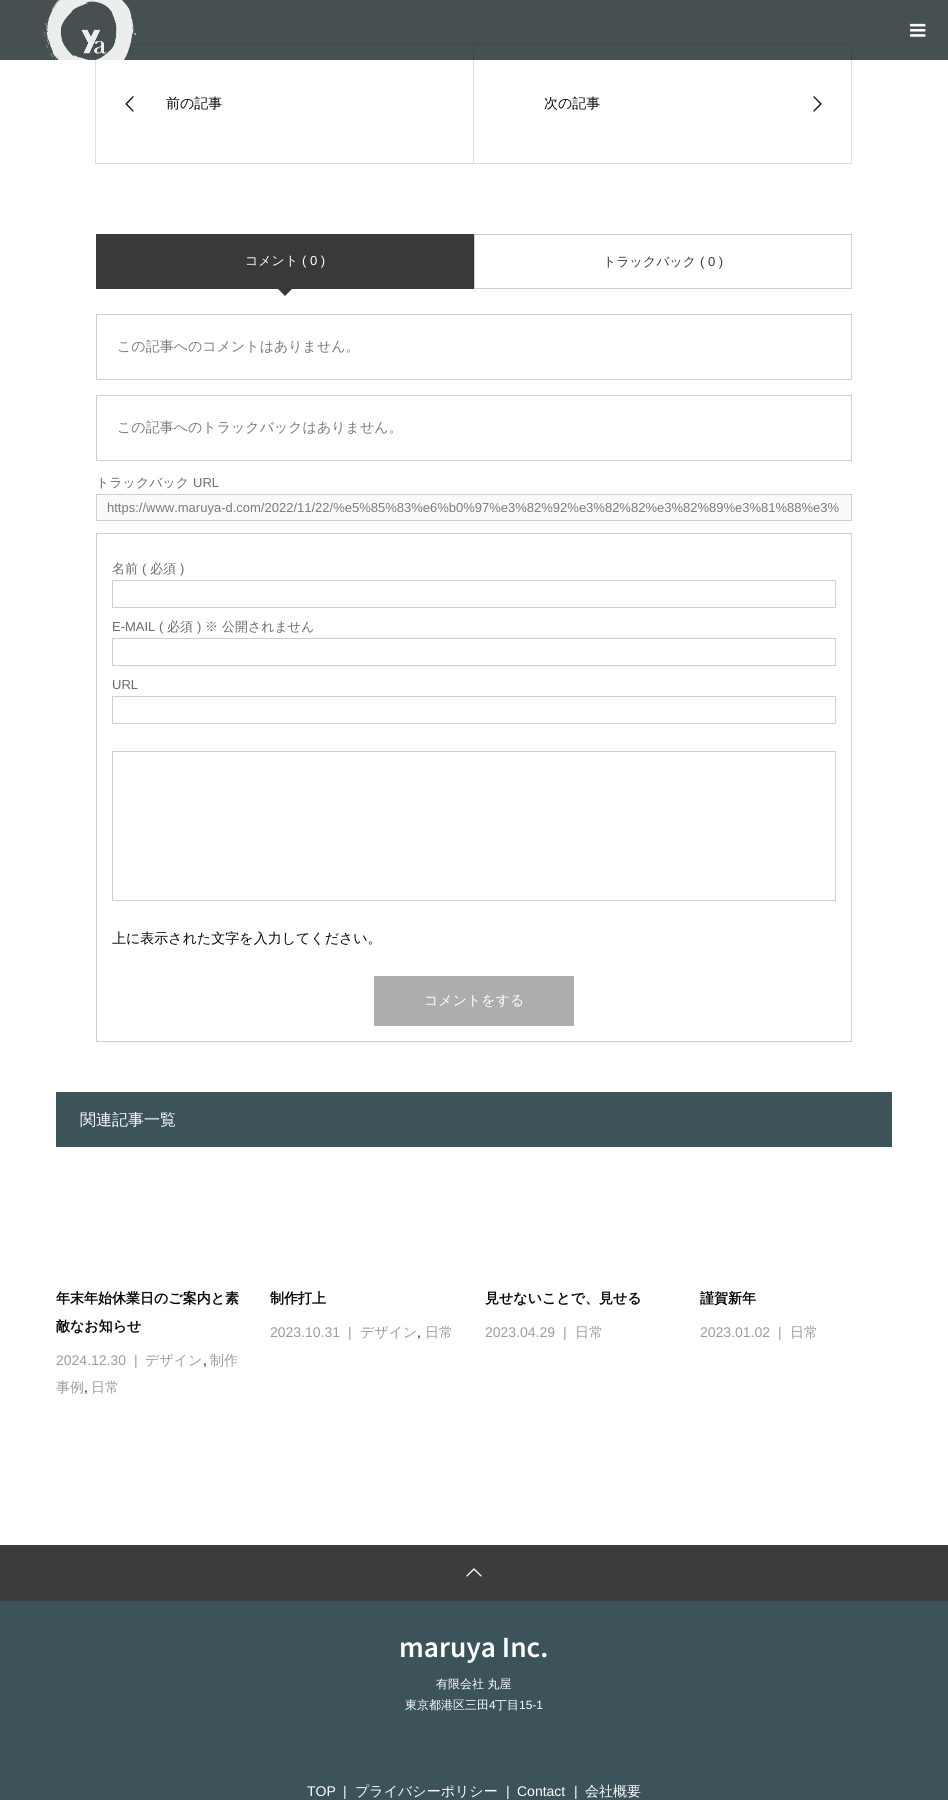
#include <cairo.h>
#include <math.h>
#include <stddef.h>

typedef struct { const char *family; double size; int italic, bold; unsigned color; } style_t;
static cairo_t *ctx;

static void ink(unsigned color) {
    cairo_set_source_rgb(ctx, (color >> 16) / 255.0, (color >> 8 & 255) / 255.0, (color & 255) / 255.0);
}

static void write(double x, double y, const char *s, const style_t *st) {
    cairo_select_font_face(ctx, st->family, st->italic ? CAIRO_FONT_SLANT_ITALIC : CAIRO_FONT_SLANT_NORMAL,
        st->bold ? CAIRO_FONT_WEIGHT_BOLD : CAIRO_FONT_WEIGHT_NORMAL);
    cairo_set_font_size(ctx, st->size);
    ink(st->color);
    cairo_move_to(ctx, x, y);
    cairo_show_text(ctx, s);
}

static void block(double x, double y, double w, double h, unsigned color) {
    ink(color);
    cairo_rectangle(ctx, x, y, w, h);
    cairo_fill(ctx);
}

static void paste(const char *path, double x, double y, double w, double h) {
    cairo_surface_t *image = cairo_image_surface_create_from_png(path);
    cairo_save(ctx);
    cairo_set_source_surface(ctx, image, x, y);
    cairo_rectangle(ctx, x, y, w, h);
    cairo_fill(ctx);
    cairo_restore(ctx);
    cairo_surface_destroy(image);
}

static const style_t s1 = {"WenQuanYi Zen Hei Medium", 14, 0, 0, 0x080808};
static const style_t s2 = {"WenQuanYi Zen Hei Medium", 13, 0, 0, 0xffffff};
static const style_t s3 = {"Liberation Sans", 13, 0, 0, 0xffffff};
static const style_t s4 = {"WenQuanYi Zen Hei Medium", 13, 0, 0, 0x393939};
static const style_t s5 = {"Liberation Sans", 13, 0, 0, 0x393939};
static const style_t s6 = {"WenQuanYi Zen Hei Medium", 14, 0, 0, 0x7b7b7b};
static const style_t s7 = {"WenQuanYi Zen Hei Medium", 13, 0, 0, 0x6b6b6b};
static const style_t s8 = {"Liberation Sans", 13, 0, 0, 0x6b6b6b};
static const style_t s9 = {"Liberation Sans", 13, 0, 0, 0x7b7b7b};
static const style_t s10 = {"WenQuanYi Zen Hei Medium", 14, 0, 0, 0xffffff};
static const style_t s11 = {"WenQuanYi Zen Hei Medium", 16, 0, 0, 0xffffff};
static const style_t s12 = {"WenQuanYi Zen Hei", 14, 0, 1, 0x080808};
static const style_t s13 = {"Liberation Sans", 14, 0, 0, 0x9c9c9c};
static const style_t s14 = {"WenQuanYi Zen Hei Medium", 14, 0, 0, 0x9c9c9c};
static const style_t s15 = {"Liberation Sans", 14, 0, 0, 0x080808};
static const style_t s16 = {"Noto Sans JP SemiBold", 26, 0, 0, 0xffffff};
static const style_t s17 = {"WenQuanYi Zen Hei Medium", 12, 0, 0, 0xffffff};
static const style_t s18 = {"Liberation Sans", 12, 0, 0, 0xffffff};
static const style_t s19 = {"Liberation Sans", 14, 0, 0, 0xffffff};

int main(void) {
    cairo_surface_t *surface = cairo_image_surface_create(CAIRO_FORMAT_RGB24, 948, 1800);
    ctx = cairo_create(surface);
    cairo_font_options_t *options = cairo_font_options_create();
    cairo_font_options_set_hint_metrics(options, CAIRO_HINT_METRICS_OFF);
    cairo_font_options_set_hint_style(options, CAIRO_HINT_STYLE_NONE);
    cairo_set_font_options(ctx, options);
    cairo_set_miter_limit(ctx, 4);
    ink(0xffffff);
    cairo_paint(ctx);
    cairo_rectangle(ctx, 95.5, 44.5, 378, 119);
    ink(0xdedede);
    cairo_set_line_width(ctx, 1);
    cairo_stroke(ctx);
    cairo_rectangle(ctx, 473.5, 44.5, 378, 119);
    cairo_stroke(ctx);
    cairo_set_source_rgba(ctx, 0.098, 0.145, 0.149, 0.8);
    cairo_rectangle(ctx, 0, 0, 948, 60);
    cairo_fill(ctx);
    paste("pic1.png", 43, 0, 93, 60);
    paste("pic2.png", 910, 23, 16, 14);
    paste("pic3.png", 125, 96, 9, 16);
    write(166, 108, "前の記事", &s1);
    write(544, 108, "次の記事", &s1);
    paste("pic4.png", 813, 96, 9, 16);
    block(96, 234, 378, 55, 0x393939);
    write(245, 265, "コメント", &s2);
    write(302, 265, "( 0 )", &s3);
    ink(0x393939);
    cairo_new_path(ctx);
    cairo_move_to(ctx, 275, 286);
    cairo_line_to(ctx, 295, 286);
    cairo_line_to(ctx, 285, 296);
    cairo_close_path(ctx);
    cairo_fill(ctx);
    cairo_rectangle(ctx, 474.5, 234.5, 377, 54);
    ink(0xcecece);
    cairo_stroke(ctx);
    write(603, 266, "トラックバック", &s4);
    write(700, 266, "( 0 )", &s5);
    cairo_rectangle(ctx, 96.5, 314.5, 755, 65);
    ink(0xcecece);
    cairo_stroke(ctx);
    write(117, 351, "この記事へのコメントはありません。", &s6);
    cairo_rectangle(ctx, 96.5, 395.5, 755, 65);
    ink(0xcecece);
    cairo_stroke(ctx);
    write(117, 432, "この記事へのトラックバックはありません。", &s6);
    write(96, 487, "トラックバック", &s7);
    write(193, 487, "URL", &s8);
    ink(0xfafafa);
    cairo_rectangle(ctx, 96.5, 494.5, 755, 26);
    cairo_fill_preserve(ctx);
    ink(0xcecece);
    cairo_stroke(ctx);
    write(107, 512, "https://www.maruya-d.com/2022/11/22/%e5%85%83%e6%b0%97%e3%82%92%e3%82%82%e3%82%89%e3%81%88%e3%", &s9);
    cairo_rectangle(ctx, 96.5, 533.5, 755, 508);
    ink(0xcecece);
    cairo_stroke(ctx);
    write(112, 573, "名前", &s7);
    write(142, 573, "(", &s8);
    write(150, 573, "必須", &s7);
    write(180, 573, ")", &s8);
    cairo_rectangle(ctx, 112.5, 580.5, 723, 27);
    ink(0xcecece);
    cairo_stroke(ctx);
    write(112, 631, "E-MAIL (", &s8);
    write(167, 631, "必須", &s7);
    write(197, 631, ")", &s8);
    write(205, 631, "※ 公開されません", &s7);
    cairo_rectangle(ctx, 112.5, 638.5, 723, 27);
    ink(0xcecece);
    cairo_stroke(ctx);
    write(112, 689, "URL", &s8);
    cairo_rectangle(ctx, 112.5, 696.5, 723, 27);
    ink(0xcecece);
    cairo_stroke(ctx);
    cairo_rectangle(ctx, 112.5, 751.5, 723, 149);
    cairo_stroke(ctx);
    write(112, 943, "上に表示された文字を入力してください。", &s1);
    block(374, 976, 200, 50, 0xadadad);
    write(424, 1005, "コメントをする", &s10);
    block(56, 1092, 836, 55, 0x3b5359);
    write(80, 1125, "関連記事一覧", &s11);
    write(56, 1303, "年末年始休業日のご案内と素", &s12);
    write(56, 1331, "敵なお知らせ", &s12);
    write(134, 1365, "|", &s13);
    write(145, 1365, "デザイン", &s14);
    write(203, 1365, ",", &s15);
    write(210, 1365, "制作", &s14);
    write(56, 1392, "事例", &s14);
    write(84, 1392, ",", &s15);
    write(91, 1392, "日常", &s14);
    write(56, 1365, "2024.12.30", &s13);
    write(270, 1303, "制作打上", &s12);
    write(270, 1337, "2023.10.31", &s13);
    write(348, 1337, "|", &s13);
    write(360, 1337, "デザイン", &s14);
    write(417, 1337, ",", &s15);
    write(425, 1337, "日常", &s14);
    write(485, 1303, "見せないことで、見せる", &s12);
    write(485, 1337, "2023.04.29", &s13);
    write(563, 1337, "|", &s13);
    write(575, 1337, "日常", &s14);
    write(700, 1303, "謹賀新年", &s12);
    write(700, 1337, "2023.01.02", &s13);
    write(778, 1337, "|", &s13);
    write(790, 1337, "日常", &s14);
    block(0, 1545, 948, 56, 0x3c3c3c);
    paste("pic5.png", 466, 1568, 16, 9);
    block(0, 1601, 948, 199, 0x3b5359);
    write(399, 1657, "maruya Inc.", &s16);
    write(436, 1688, "有限会社 丸屋", &s17);
    write(405, 1709, "東京都港区三田", &s17);
    write(489, 1709, "4", &s18);
    write(495, 1709, "丁目", &s17);
    write(519, 1709, "15-1", &s18);
    write(307, 1796, "TOP", &s19);
    write(343, 1796, "|", &s19);
    write(355, 1796, "プライバシーポリシー", &s10);
    write(506, 1796, "|", &s19);
    write(517, 1796, "Contact", &s19);
    write(574, 1796, "|", &s19);
    write(585, 1796, "会社概要", &s10);
    cairo_surface_write_to_png(surface, "screenshot.png");
    cairo_font_options_destroy(options);
    cairo_destroy(ctx);
    cairo_surface_destroy(surface);
    return 0;
}
